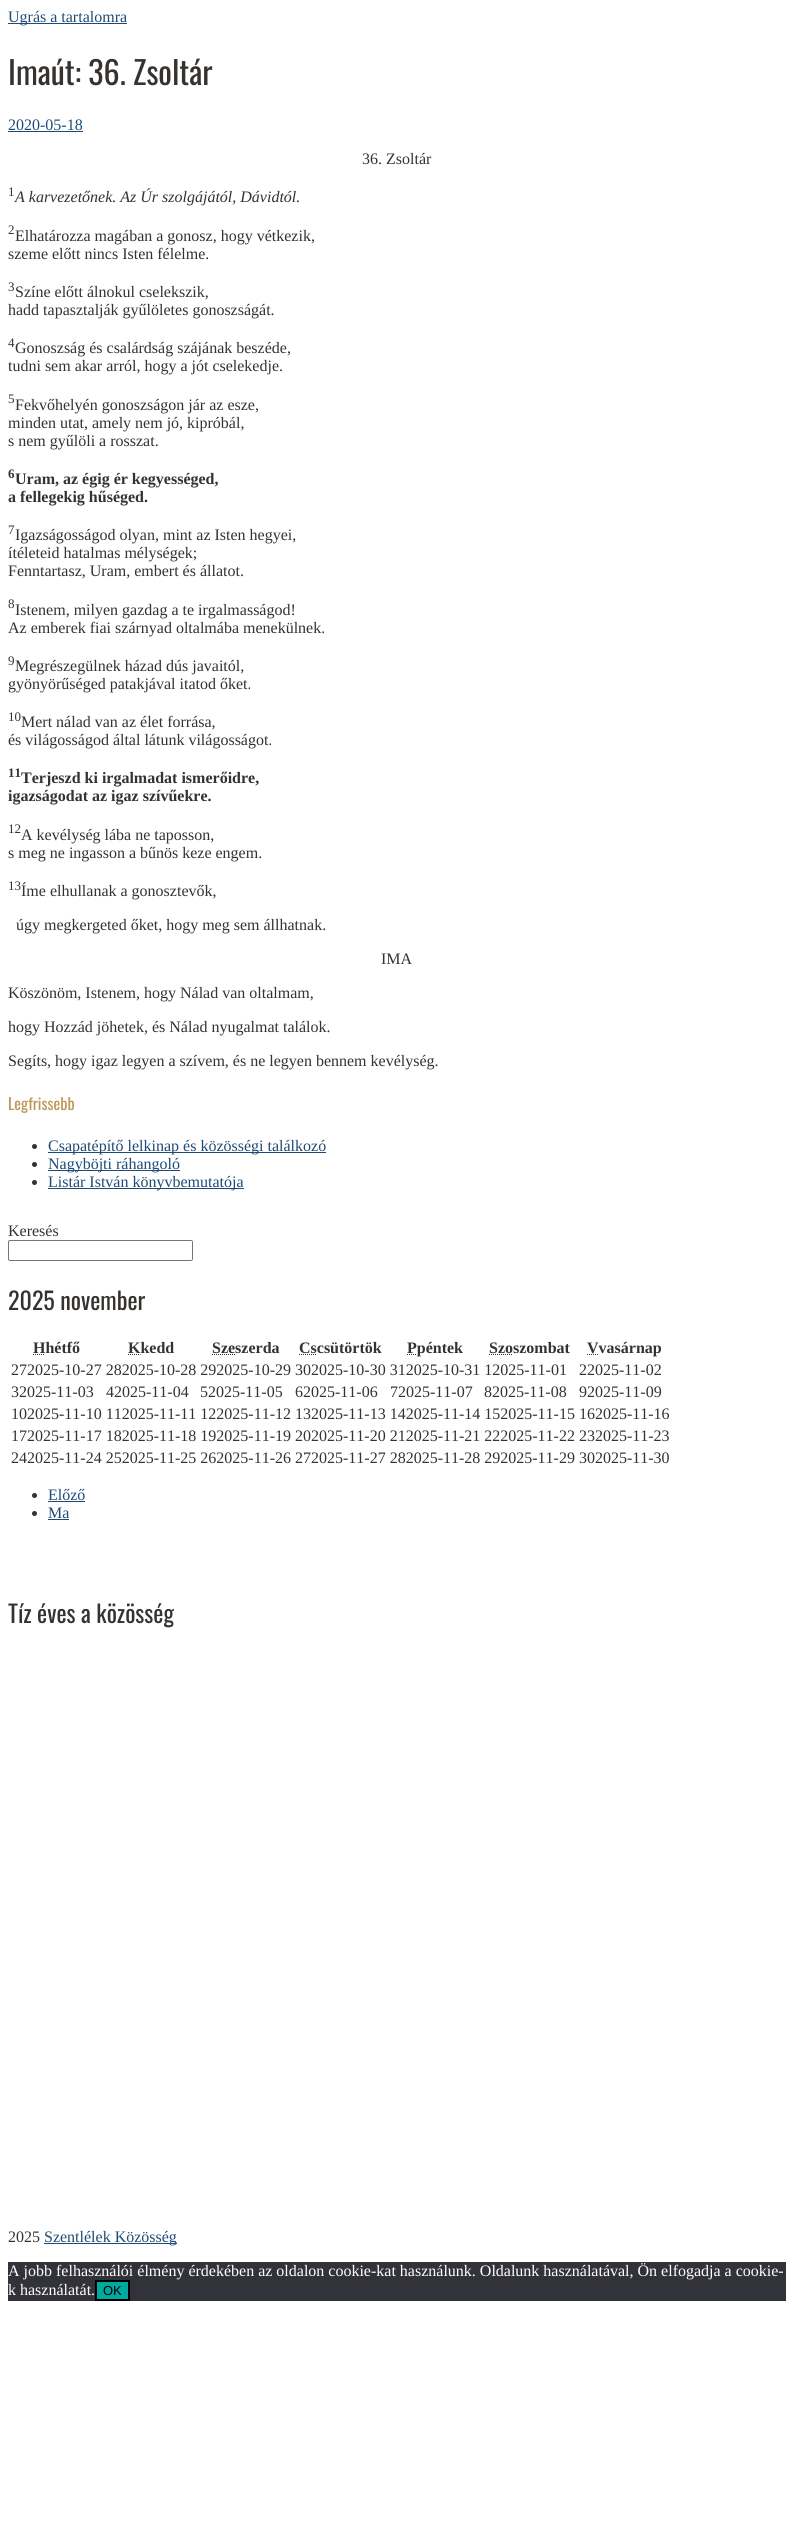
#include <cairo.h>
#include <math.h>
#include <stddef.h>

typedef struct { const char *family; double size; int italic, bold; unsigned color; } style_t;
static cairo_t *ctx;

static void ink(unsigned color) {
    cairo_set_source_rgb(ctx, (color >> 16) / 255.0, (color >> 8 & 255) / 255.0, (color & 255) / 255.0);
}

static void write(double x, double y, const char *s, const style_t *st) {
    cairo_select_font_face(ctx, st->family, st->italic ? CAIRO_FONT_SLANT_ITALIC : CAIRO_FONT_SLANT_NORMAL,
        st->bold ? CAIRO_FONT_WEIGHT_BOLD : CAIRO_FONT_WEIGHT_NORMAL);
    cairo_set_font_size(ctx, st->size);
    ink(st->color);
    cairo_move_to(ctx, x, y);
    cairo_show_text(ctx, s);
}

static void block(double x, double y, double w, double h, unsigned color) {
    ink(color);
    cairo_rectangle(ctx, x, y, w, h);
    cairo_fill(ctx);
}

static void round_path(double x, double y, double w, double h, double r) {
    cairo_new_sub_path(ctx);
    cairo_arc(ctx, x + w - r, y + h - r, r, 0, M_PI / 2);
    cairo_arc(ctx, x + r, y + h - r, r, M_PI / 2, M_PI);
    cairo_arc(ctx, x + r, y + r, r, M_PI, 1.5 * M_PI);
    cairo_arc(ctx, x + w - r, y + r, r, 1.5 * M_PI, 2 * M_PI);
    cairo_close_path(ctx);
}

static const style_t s1 = {"Liberation Serif", 16, 0, 0, 0x1e4b75};
static const style_t s2 = {"Oswald", 32, 0, 0, 0x35322f};
static const style_t s3 = {"Liberation Serif", 16, 0, 0, 0x35322f};
static const style_t s4 = {"Liberation Serif", 13, 0, 0, 0x35322f};
static const style_t s5 = {"Liberation Serif", 16, 1, 0, 0x35322f};
static const style_t s6 = {"Liberation Serif", 13, 0, 1, 0x35322f};
static const style_t s7 = {"Liberation Serif", 16, 0, 1, 0x35322f};
static const style_t s8 = {"Oswald", 16, 0, 0, 0xbe9756};
static const style_t s9 = {"Oswald", 24, 0, 0, 0x35322f};
static const style_t s10 = {"Liberation Serif", 16, 0, 0, 0xffffff};
static const style_t s11 = {"Liberation Sans", 13, 0, 0, 0x000000};

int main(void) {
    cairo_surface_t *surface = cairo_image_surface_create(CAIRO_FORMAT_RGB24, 794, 2548);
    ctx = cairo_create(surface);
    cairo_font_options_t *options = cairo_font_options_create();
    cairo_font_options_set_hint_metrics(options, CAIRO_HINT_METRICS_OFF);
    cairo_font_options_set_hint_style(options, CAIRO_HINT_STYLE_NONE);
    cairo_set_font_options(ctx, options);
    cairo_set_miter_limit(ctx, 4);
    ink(0xffffff);
    cairo_paint(ctx);
    block(8, 23, 119, 1, 0x1e4b75);
    write(8, 22, "Ugrás a tartalomra", &s1);
    write(8, 85, "Imaút: 36. Zsoltár", &s2);
    write(8, 130, "2020-05-18", &s1);
    block(8, 131, 75, 1, 0x1e4b75);
    write(362, 164, "36. Zsoltár", &s3);
    write(8, 196, "1", &s4);
    write(15, 202, "A karvezetőnek. Az Úr szolgájától, Dávidtól.", &s5);
    write(8, 234, "2", &s4);
    write(15, 241, "Elhatározza magában a gonosz, hogy vétkezik,", &s3);
    write(8, 259, "szeme előtt nincs Isten félelme.", &s3);
    write(8, 291, "3", &s4);
    write(15, 297, "Színe előtt álnokul cselekszik,", &s3);
    write(8, 315, "hadd tapasztalják gyűlöletes gonoszságát.", &s3);
    write(8, 347, "4", &s4);
    write(15, 353, "Gonoszság és csalárdság szájának beszéde,", &s3);
    write(8, 371, "tudni sem akar arról, hogy a jót cselekedje.", &s3);
    write(8, 403, "5", &s4);
    write(15, 410, "Fekvőhelyén gonoszságon jár az esze,", &s3);
    write(8, 428, "minden utat, amely nem jó, kipróbál,", &s3);
    write(8, 446, "s nem gyűlöli a rosszat.", &s3);
    write(8, 478, "6", &s6);
    write(15, 484, "Uram, az égig ér kegyességed,", &s7);
    write(8, 502, "a fellegekig hűséged.", &s7);
    write(8, 534, "7", &s4);
    write(15, 540, "Igazságosságod olyan, mint az Isten hegyei,", &s3);
    write(8, 558, "ítéleteid hatalmas mélységek;", &s3);
    write(8, 576, "Fenntartasz, Uram, embert és állatot.", &s3);
    write(8, 608, "8", &s4);
    write(15, 615, "Istenem, milyen gazdag a te irgalmasságod!", &s3);
    write(8, 633, "Az emberek fiai szárnyad oltalmába menekülnek.", &s3);
    write(8, 665, "9", &s4);
    write(15, 671, "Megrészegülnek házad dús javaitól,", &s3);
    write(8, 689, "gyönyörűséged patakjával itatod őket.", &s3);
    write(8, 721, "10", &s4);
    write(21, 727, "Mert nálad van az élet forrása,", &s3);
    write(8, 745, "és világosságod által látunk világosságot.", &s3);
    write(8, 777, "11", &s6);
    write(21, 783, "Terjeszd ki irgalmadat ismerőidre,", &s7);
    write(8, 801, "igazságodat az igaz szívűekre.", &s7);
    write(8, 833, "12", &s4);
    write(21, 840, "A kevélység lába ne taposson,", &s3);
    write(8, 858, "s meg ne ingasson a bűnös keze engem.", &s3);
    write(8, 890, "13", &s4);
    write(21, 896, "Íme elhullanak a gonosztevők,", &s3);
    write(16, 930, "úgy megkergeted őket, hogy meg sem állhatnak.", &s3);
    write(381, 964, "IMA", &s3);
    write(8, 998, "Köszönöm, Istenem, hogy Nálad van oltalmam,", &s3);
    write(8, 1032, "hogy Hozzád jöhetek, és Nálad nyugalmat találok.", &s3);
    write(8, 1066, "Segíts, hogy igaz legyen a szívem, és ne legyen bennem kevélység.", &s3);
    write(8, 1110, "Legfrissebb", &s8);
    ink(0x35322f);
    cairo_new_path(ctx);
    cairo_arc(ctx, 34.5, 1146.5, 2.5, 0, 2 * M_PI);
    cairo_fill(ctx);
    block(48, 1152, 278, 1, 0x1e4b75);
    write(48, 1151, "Csapatépítő lelkinap és közösségi találkozó", &s1);
    ink(0x35322f);
    cairo_new_path(ctx);
    cairo_arc(ctx, 34.5, 1164.5, 2.5, 0, 2 * M_PI);
    cairo_fill(ctx);
    block(48, 1170, 132, 1, 0x1e4b75);
    write(48, 1169, "Nagyböjti ráhangoló", &s1);
    ink(0x35322f);
    cairo_new_path(ctx);
    cairo_arc(ctx, 34.5, 1182.5, 2.5, 0, 2 * M_PI);
    cairo_fill(ctx);
    block(48, 1188, 196, 1, 0x1e4b75);
    write(48, 1187, "Listár István könyvbemutatója", &s1);
    write(8, 1236, "Keresés", &s3);
    round_path(8.5, 1240.5, 184, 20, 1.5);
    ink(0x767676);
    cairo_set_line_width(ctx, 1);
    cairo_stroke(ctx);
    write(8, 1310, "2025 november", &s9);
    write(33, 1353, "Hhétfő", &s7);
    cairo_new_path(ctx);
    cairo_move_to(ctx, 33, 1354.5);
    cairo_line_to(ctx, 45, 1354.5);
    cairo_set_dash(ctx, (double[]){1, 1}, 2, 0);
    cairo_stroke(ctx);
    write(128, 1353, "Kkedd", &s7);
    cairo_new_path(ctx);
    cairo_move_to(ctx, 128, 1354.5);
    cairo_line_to(ctx, 140.5, 1354.5);
    cairo_stroke(ctx);
    write(212, 1353, "Szeszerda", &s7);
    cairo_new_path(ctx);
    cairo_move_to(ctx, 212, 1354.5);
    cairo_line_to(ctx, 235, 1354.5);
    cairo_stroke(ctx);
    write(299, 1353, "Cscsütörtök", &s7);
    cairo_new_path(ctx);
    cairo_move_to(ctx, 299, 1354.5);
    cairo_line_to(ctx, 316.5, 1354.5);
    cairo_stroke(ctx);
    cairo_new_path(ctx);
    cairo_move_to(ctx, 407, 1354.5);
    cairo_line_to(ctx, 416.5, 1354.5);
    cairo_stroke(ctx);
    write(407, 1353, "Ppéntek", &s7);
    write(489, 1353, "Szoszombat", &s7);
    cairo_new_path(ctx);
    cairo_move_to(ctx, 489, 1354.5);
    cairo_line_to(ctx, 513, 1354.5);
    cairo_stroke(ctx);
    cairo_new_path(ctx);
    cairo_move_to(ctx, 587, 1354.5);
    cairo_line_to(ctx, 598.5, 1354.5);
    cairo_stroke(ctx);
    write(587, 1353, "Vvasárnap", &s7);
    write(11, 1375, "272025-10-27 282025-10-28 292025-10-29 302025-10-30 312025-10-31 12025-11-01", &s3);
    write(579, 1375, "22025-11-02", &s3);
    write(11, 1397, "32025-11-03", &s3);
    write(106, 1397, "42025-11-04", &s3);
    write(200, 1397, "52025-11-05", &s3);
    write(295, 1397, "62025-11-06", &s3);
    write(390, 1397, "72025-11-07", &s3);
    write(484, 1397, "82025-11-08", &s3);
    write(579, 1397, "92025-11-09", &s3);
    write(11, 1419, "102025-11-10 112025-11-11 122025-11-12 132025-11-13 142025-11-14 152025-11-15 162025-11-16", &s3);
    write(11, 1441, "172025-11-17 182025-11-18 192025-11-19 202025-11-20 212025-11-21 222025-11-22 232025-11-23", &s3);
    write(11, 1463, "242025-11-24 252025-11-25 262025-11-26 272025-11-27 282025-11-28 292025-11-29 302025-11-30", &s3);
    cairo_new_path(ctx);
    cairo_arc(ctx, 34.5, 1495.5, 2.5, 0, 2 * M_PI);
    cairo_fill(ctx);
    write(48, 1500, "Előző", &s1);
    block(48, 1501, 37, 1, 0x1e4b75);
    ink(0x35322f);
    cairo_new_path(ctx);
    cairo_arc(ctx, 34.5, 1513.5, 2.5, 0, 2 * M_PI);
    cairo_fill(ctx);
    write(48, 1518, "Ma", &s1);
    block(48, 1519, 21, 1, 0x1e4b75);
    write(8, 1623, "Tíz éves a közösség", &s9);
    write(8, 2242, "2025", &s3);
    block(44, 2243, 133, 1, 0x1e4b75);
    write(44, 2242, "Szentlélek Közösség", &s1);
    block(8, 2262, 778, 39, 0x32323a);
    write(8, 2276, "A jobb felhasználói élmény érdekében az oldalon cookie-kat használunk. Oldalunk használatával, Ön elfogadja a cookie-", &s10);
    write(8, 2295, "k használatát.", &s10);
    ink(0x00a99d);
    cairo_rectangle(ctx, 96, 2281, 33, 19);
    cairo_fill_preserve(ctx);
    ink(0x000000);
    cairo_set_line_width(ctx, 2);
    cairo_set_dash(ctx, NULL, 0, 0);
    cairo_stroke(ctx);
    write(103, 2295, "OK", &s11);
    cairo_surface_write_to_png(surface, "screenshot.png");
    cairo_font_options_destroy(options);
    cairo_destroy(ctx);
    cairo_surface_destroy(surface);
    return 0;
}
